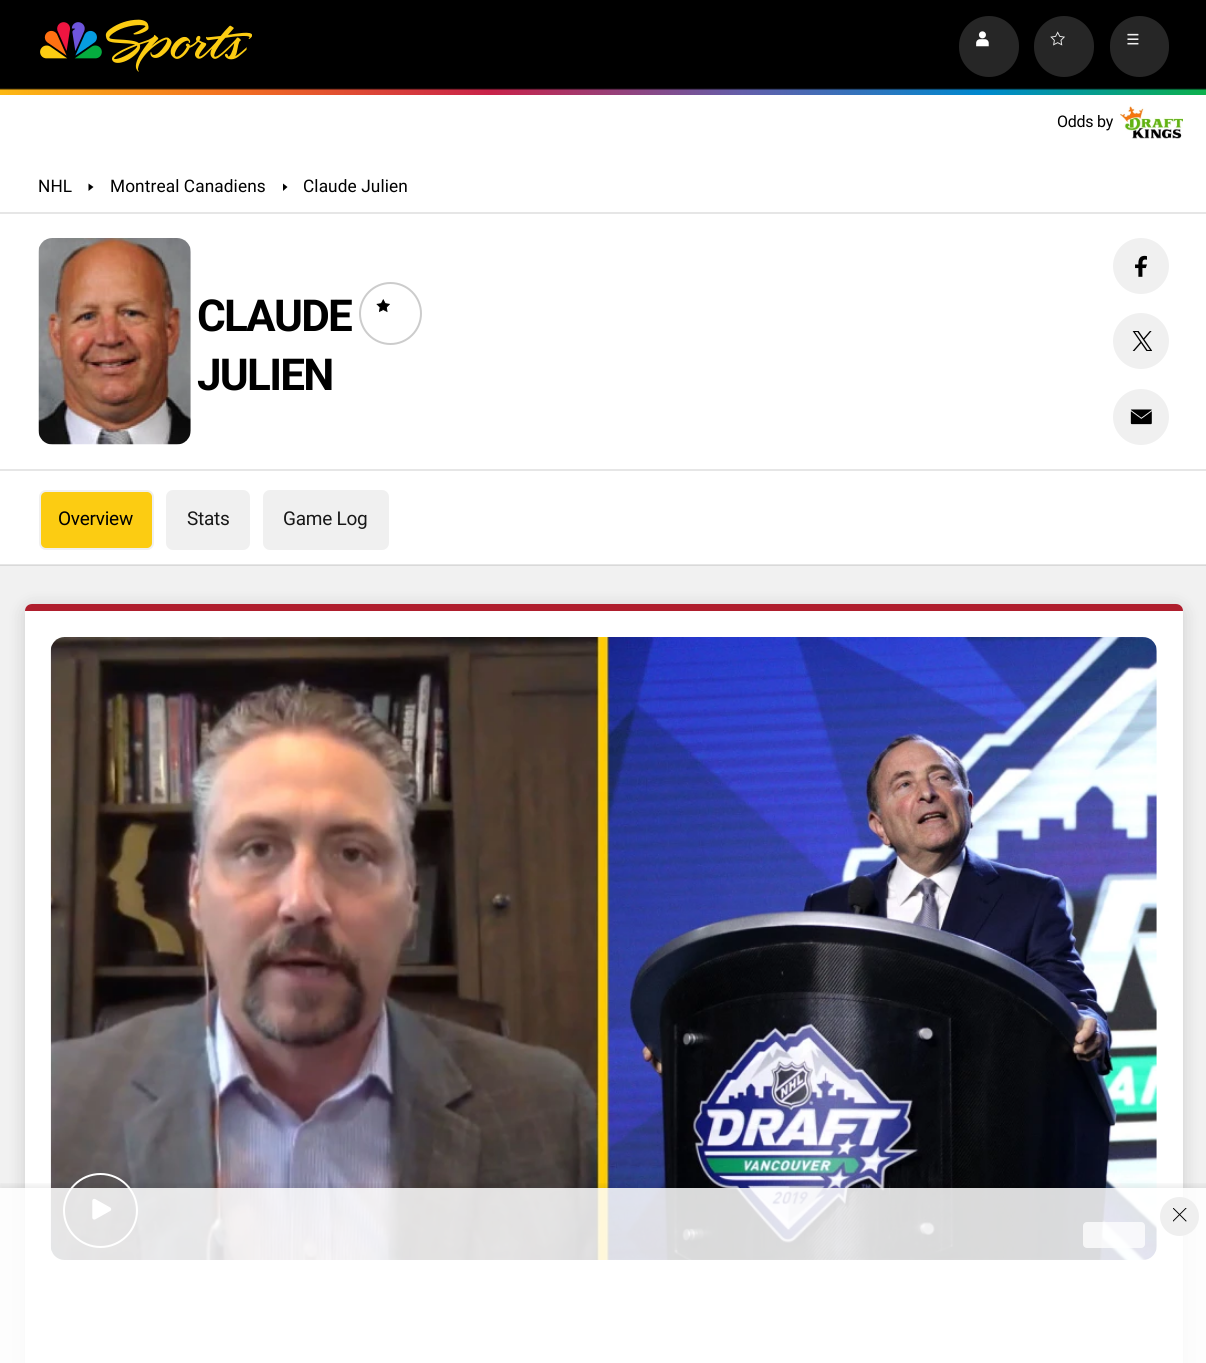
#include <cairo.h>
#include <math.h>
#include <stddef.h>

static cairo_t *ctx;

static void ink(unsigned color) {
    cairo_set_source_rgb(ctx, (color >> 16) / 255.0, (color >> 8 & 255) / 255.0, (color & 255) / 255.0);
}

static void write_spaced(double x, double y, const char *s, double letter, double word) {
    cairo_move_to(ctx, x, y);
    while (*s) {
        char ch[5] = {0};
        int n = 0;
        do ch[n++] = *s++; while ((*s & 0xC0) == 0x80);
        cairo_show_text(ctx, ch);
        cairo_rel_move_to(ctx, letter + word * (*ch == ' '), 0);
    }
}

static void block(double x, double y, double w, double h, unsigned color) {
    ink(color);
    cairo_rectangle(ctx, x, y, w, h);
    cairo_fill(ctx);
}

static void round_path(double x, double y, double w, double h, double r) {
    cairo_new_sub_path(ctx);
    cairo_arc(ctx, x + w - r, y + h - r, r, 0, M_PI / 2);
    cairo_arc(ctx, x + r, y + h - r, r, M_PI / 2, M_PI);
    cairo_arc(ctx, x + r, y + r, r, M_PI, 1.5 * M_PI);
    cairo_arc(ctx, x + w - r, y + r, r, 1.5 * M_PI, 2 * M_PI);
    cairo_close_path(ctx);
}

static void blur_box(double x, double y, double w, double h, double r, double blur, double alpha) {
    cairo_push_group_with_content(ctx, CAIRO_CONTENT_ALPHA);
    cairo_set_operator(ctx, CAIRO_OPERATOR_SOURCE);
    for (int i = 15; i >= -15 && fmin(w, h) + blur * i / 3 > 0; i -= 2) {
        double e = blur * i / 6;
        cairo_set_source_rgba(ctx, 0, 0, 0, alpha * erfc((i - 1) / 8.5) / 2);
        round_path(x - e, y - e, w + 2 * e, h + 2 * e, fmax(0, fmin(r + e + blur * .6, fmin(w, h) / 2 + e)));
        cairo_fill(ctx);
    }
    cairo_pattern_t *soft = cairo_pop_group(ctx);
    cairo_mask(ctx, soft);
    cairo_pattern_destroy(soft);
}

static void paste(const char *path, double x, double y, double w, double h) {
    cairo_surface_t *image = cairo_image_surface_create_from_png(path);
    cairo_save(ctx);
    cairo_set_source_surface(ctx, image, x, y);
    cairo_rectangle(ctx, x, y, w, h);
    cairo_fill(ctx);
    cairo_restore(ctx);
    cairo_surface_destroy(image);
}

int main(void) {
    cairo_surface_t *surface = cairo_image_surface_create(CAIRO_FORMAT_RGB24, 1206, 1363);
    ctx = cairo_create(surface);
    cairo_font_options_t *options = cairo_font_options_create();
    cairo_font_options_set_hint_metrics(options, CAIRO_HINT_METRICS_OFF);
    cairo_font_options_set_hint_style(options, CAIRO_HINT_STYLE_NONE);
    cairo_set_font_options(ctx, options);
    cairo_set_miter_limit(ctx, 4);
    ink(0xf1f1f1);
    cairo_paint(ctx);
    block(0, 565, 1206, 1, 0xd9d9d9);
    block(0, 0, 1206, 90, 0x000000);
    paste("pic1.png", 40, 19, 212, 53);
    ink(0x262626);
    round_path(959, 16, 60, 61, 30);
    cairo_fill(ctx);
    paste("pic2.png", 976, 31, 13, 16);
    round_path(1034, 16, 60, 61, 30);
    cairo_fill(ctx);
    paste("pic3.png", 1050, 31, 15, 15);
    round_path(1110, 16, 59, 61, 29.5);
    cairo_fill(ctx);
    paste("pic4.png", 1127, 33, 12, 12);
    paste("pic5.png", 0, 88, 1206, 7);
    block(0, 95, 1206, 469, 0xffffff);
    cairo_select_font_face(ctx, "Roboto", CAIRO_FONT_SLANT_NORMAL, CAIRO_FONT_WEIGHT_NORMAL);
    cairo_set_font_size(ctx, 16);
    ink(0x000000);
    write_spaced(1057, 127, "Odds by", -0.25, 0);
    paste("pic6.png", 1120, 106, 63, 33);
    block(0, 564, 1206, 1, 0xe6e6e6);
    block(0, 212, 1206, 2, 0xe6e6e6);
    cairo_set_font_size(ctx, 17.25);
    ink(0x000000);
    write_spaced(38, 192, "NHL", 0.1, 0);
    cairo_new_path(ctx);
    cairo_move_to(ctx, 93.5, 187);
    cairo_line_to(ctx, 88.5, 183.5);
    cairo_line_to(ctx, 88.5, 191);
    cairo_close_path(ctx);
    cairo_fill(ctx);
    write_spaced(110, 192, "Montreal Canadiens", 0.1, 0);
    cairo_new_path(ctx);
    cairo_move_to(ctx, 287.5, 187);
    cairo_line_to(ctx, 283, 183.5);
    cairo_line_to(ctx, 283, 191);
    cairo_close_path(ctx);
    cairo_fill(ctx);
    write_spaced(303, 192, "Claude Julien", 0.1, 0);
    paste("pic7.png", 38, 238, 153, 207);
    cairo_select_font_face(ctx, "Roboto", CAIRO_FONT_SLANT_NORMAL, CAIRO_FONT_WEIGHT_BOLD);
    cairo_set_font_size(ctx, 44);
    write_spaced(197, 331, "CLAUDE", -1.75, 0);
    cairo_new_path(ctx);
    cairo_arc(ctx, 390.5, 313.5, 30.5, 0, 2 * M_PI);
    ink(0xcccccc);
    cairo_stroke(ctx);
    paste("pic8.png", 376, 299, 14, 14);
    ink(0x000000);
    write_spaced(197, 390, "JULIEN", -1.75, 0);
    ink(0xf0f0f0);
    cairo_new_path(ctx);
    cairo_arc(ctx, 1141, 266, 28, 0, 2 * M_PI);
    cairo_fill(ctx);
    paste("pic9.png", 1135, 255, 12, 22);
    cairo_arc(ctx, 1141, 341, 28, 0, 2 * M_PI);
    cairo_fill(ctx);
    paste("pic10.png", 1132, 331, 20, 20);
    cairo_arc(ctx, 1141, 417, 28, 0, 2 * M_PI);
    cairo_fill(ctx);
    paste("pic11.png", 1130, 409, 22, 16);
    block(0, 469, 1206, 2, 0xe6e6e6);
    ink(0xfccc12);
    round_path(40, 491, 113, 58, 6);
    cairo_fill_preserve(ctx);
    ink(0xf0f0f0);
    cairo_stroke(ctx);
    cairo_select_font_face(ctx, "Roboto", CAIRO_FONT_SLANT_NORMAL, CAIRO_FONT_WEIGHT_NORMAL);
    cairo_set_font_size(ctx, 19);
    ink(0x000000);
    write_spaced(58, 525, "Overview", -0.25, 0);
    ink(0xf0f0f0);
    round_path(167, 491, 82, 58, 6);
    cairo_fill_preserve(ctx);
    cairo_stroke(ctx);
    ink(0x181818);
    write_spaced(187, 525, "Stats", -0.25, 0);
    ink(0xf0f0f0);
    round_path(264, 491, 124, 58, 6);
    cairo_fill_preserve(ctx);
    cairo_stroke(ctx);
    ink(0x181818);
    write_spaced(283, 525, "Game Log", -0.25, 0);
    ink(0x000000);
    blur_box(25, 607, 1158, 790, 7, 9, 0.15);
    ink(0xffffff);
    round_path(25, 604, 1158, 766, 7);
    cairo_fill(ctx);
    ink(0xaf1e2d);
    cairo_new_path(ctx);
    cairo_move_to(ctx, 32, 604);
    cairo_line_to(ctx, 1176, 604);
    cairo_curve_to(ctx, 1180, 604, 1183, 607, 1183, 611);
    cairo_line_to(ctx, 25, 611);
    cairo_curve_to(ctx, 25, 607, 28, 604, 32, 604);
    cairo_close_path(ctx);
    cairo_fill(ctx);
    paste("pic12.png", 50, 637, 1107, 623);
    cairo_set_source_rgba(ctx, 0, 0, 0, 0.1);
    cairo_arc(ctx, 100.5, 1210.5, 36.5, 0, 2 * M_PI);
    cairo_fill_preserve(ctx);
    ink(0xffffff);
    cairo_stroke(ctx);
    paste("pic13.png", 92, 1198, 20, 22);
    cairo_set_source_rgba(ctx, 1, 1, 1, 0.75);
    round_path(1083, 1222, 62, 26, 4);
    cairo_fill(ctx);
    cairo_save(ctx);
    cairo_rectangle(ctx, 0, 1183, 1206, 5);
    cairo_clip(ctx);
    ink(0x000000);
    blur_box(0, 1185, 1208, 175, 0, 3.5, 0.08);
    cairo_restore(ctx);
    cairo_set_source_rgba(ctx, 1, 1, 1, 0.85);
    cairo_rectangle(ctx, 0, 1188, 1206, 175);
    cairo_fill(ctx);
    ink(0xefefef);
    cairo_arc(ctx, 1179.5, 1216.5, 19.5, 0, 2 * M_PI);
    cairo_fill(ctx);
    paste("pic14.png", 1173, 1208, 14, 14);
    cairo_surface_write_to_png(surface, "screenshot.png");
    cairo_font_options_destroy(options);
    cairo_destroy(ctx);
    cairo_surface_destroy(surface);
    return 0;
}
